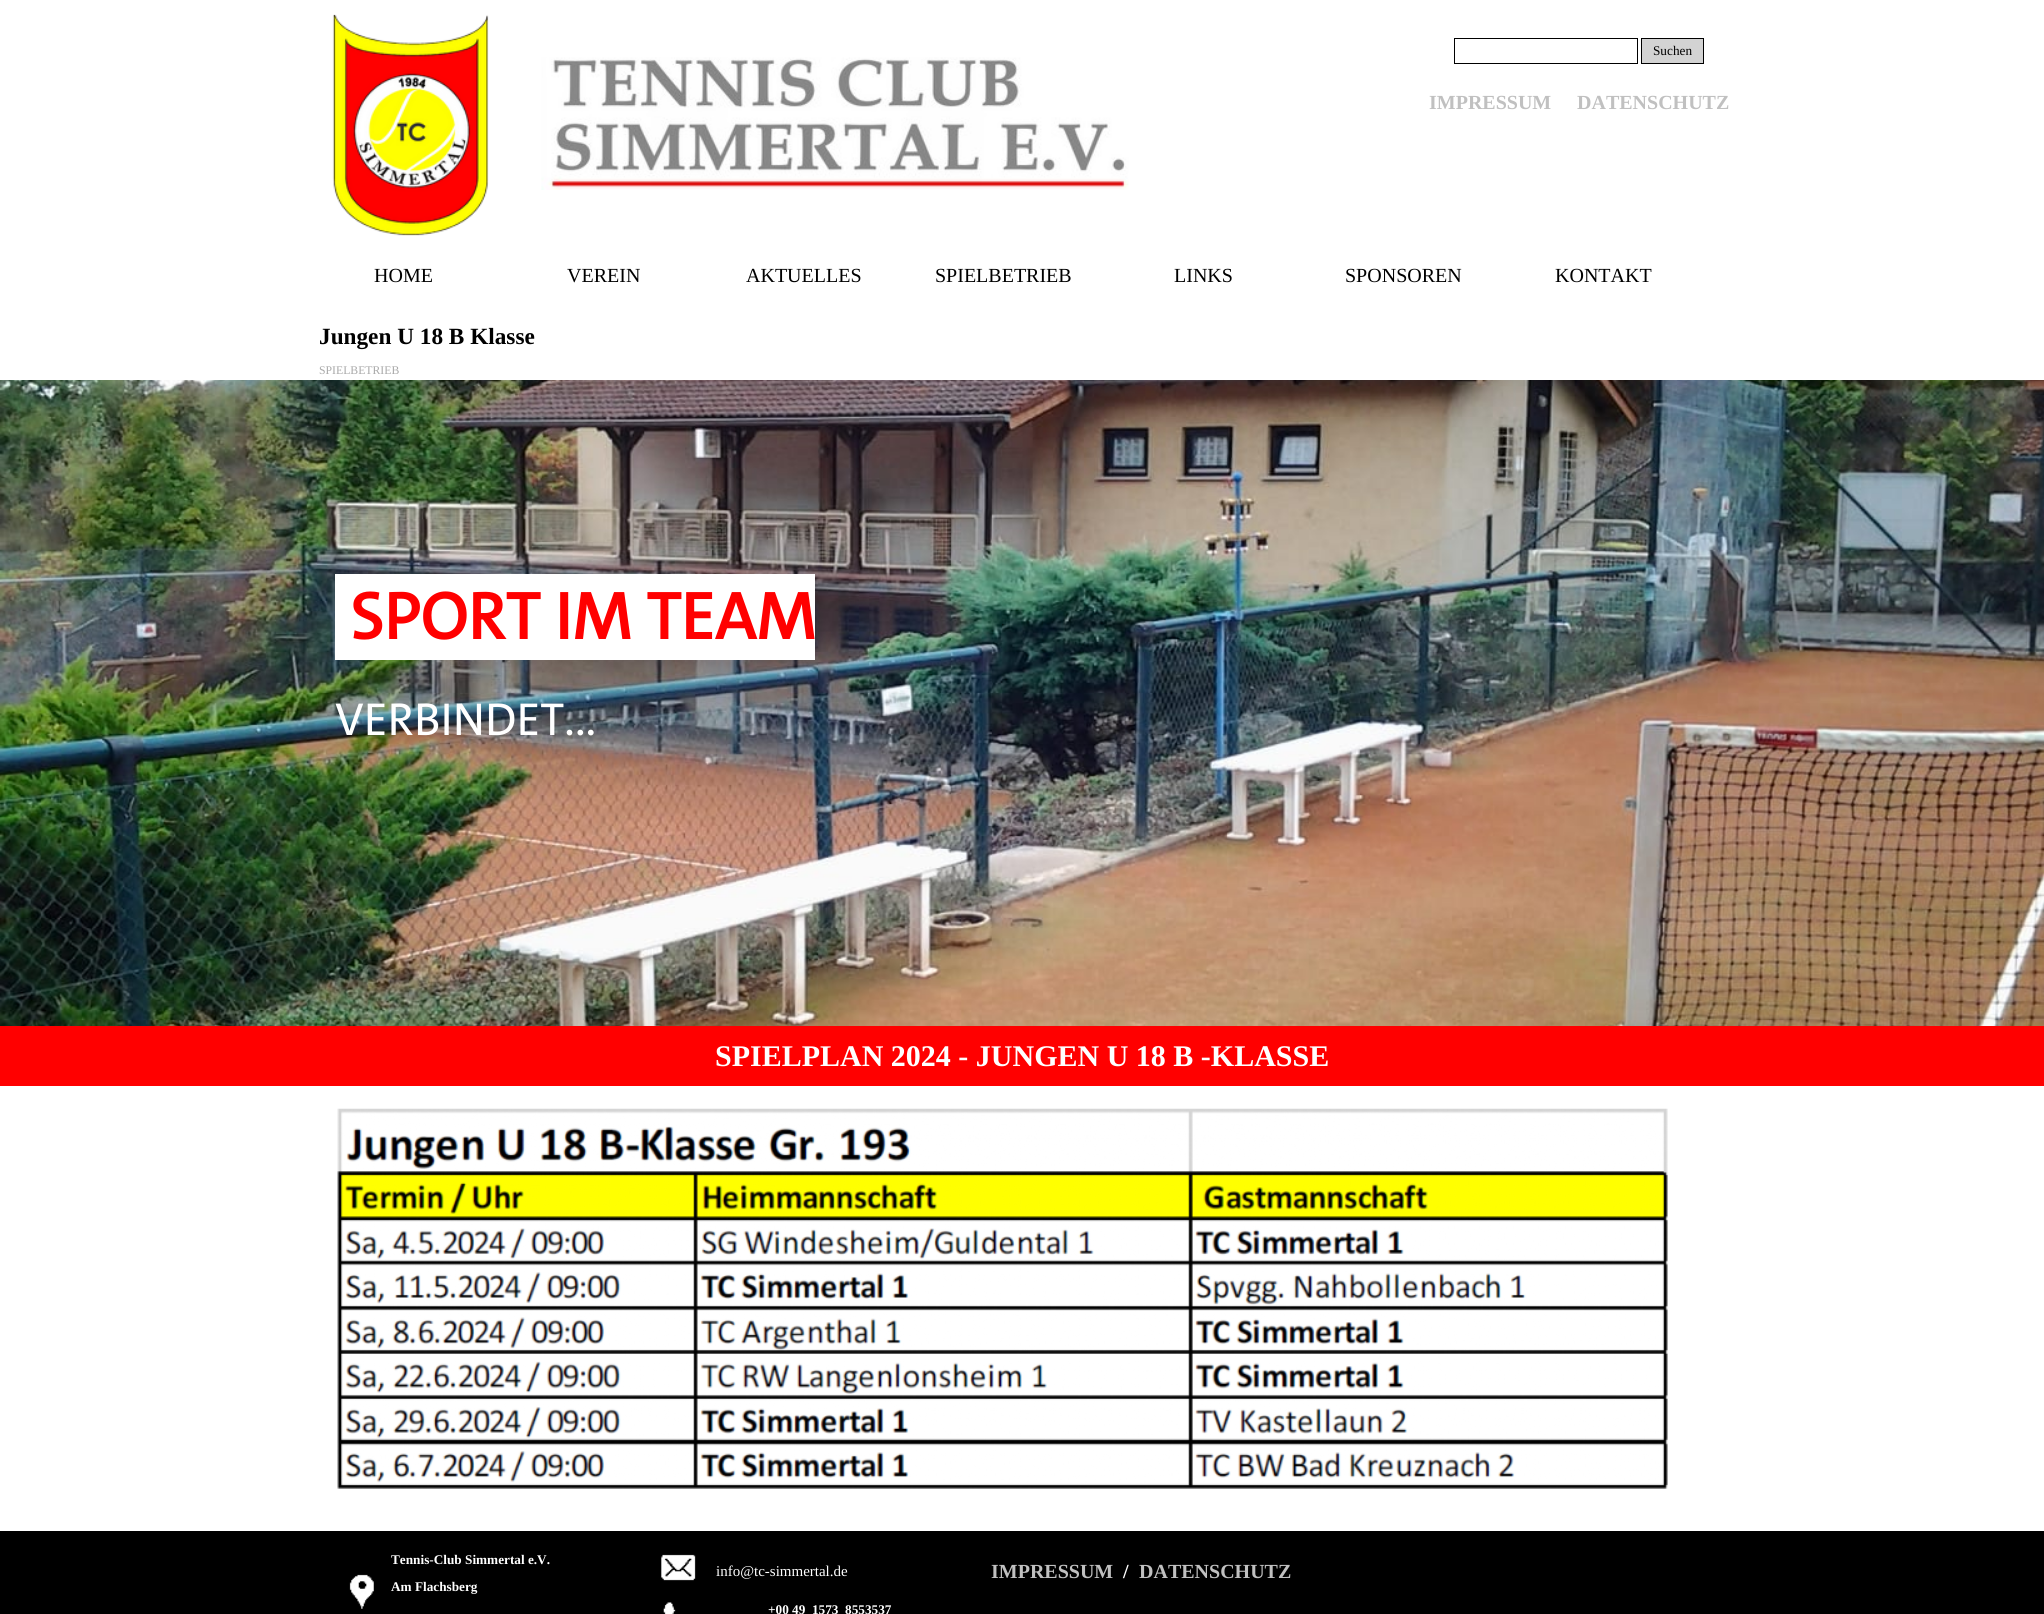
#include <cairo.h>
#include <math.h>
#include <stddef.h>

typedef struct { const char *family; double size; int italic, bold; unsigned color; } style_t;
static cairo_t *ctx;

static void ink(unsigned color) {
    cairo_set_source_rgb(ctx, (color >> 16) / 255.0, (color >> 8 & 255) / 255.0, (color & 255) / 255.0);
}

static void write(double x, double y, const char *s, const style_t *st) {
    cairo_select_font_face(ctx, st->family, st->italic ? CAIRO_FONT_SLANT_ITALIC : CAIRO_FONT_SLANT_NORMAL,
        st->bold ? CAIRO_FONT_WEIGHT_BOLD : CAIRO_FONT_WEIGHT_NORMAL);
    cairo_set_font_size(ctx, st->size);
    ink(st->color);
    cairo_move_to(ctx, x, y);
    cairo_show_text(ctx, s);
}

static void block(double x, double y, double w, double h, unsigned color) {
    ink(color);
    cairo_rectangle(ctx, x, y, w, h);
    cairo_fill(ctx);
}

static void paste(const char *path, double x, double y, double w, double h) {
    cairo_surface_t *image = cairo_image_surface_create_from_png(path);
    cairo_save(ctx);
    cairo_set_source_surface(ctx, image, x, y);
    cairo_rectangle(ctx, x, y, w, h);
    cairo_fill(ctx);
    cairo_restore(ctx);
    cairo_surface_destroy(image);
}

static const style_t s1 = {"Liberation Serif", 13.25, 0, 0, 0x000000};
static const style_t s2 = {"Liberation Serif", 20, 0, 1, 0xc0c0c0};
static const style_t s3 = {"Liberation Serif", 20, 0, 0, 0x000000};
static const style_t s4 = {"Liberation Serif", 23.25, 0, 1, 0x000000};
static const style_t s5 = {"Liberation Serif", 11.75, 0, 0, 0xa9a9a9};
static const style_t s6 = {"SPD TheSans", 66.75, 0, 1, 0xff0000};
static const style_t s7 = {"SPD TheSans", 46.5, 0, 0, 0xffffff};
static const style_t s8 = {"Liberation Serif", 30, 0, 1, 0xffffff};
static const style_t s9 = {"Liberation Serif", 13.25, 0, 1, 0xffffff};
static const style_t s10 = {"Liberation Serif", 15, 0, 0, 0xffffff};
static const style_t s11 = {"Liberation Serif", 20, 0, 1, 0xffffff};

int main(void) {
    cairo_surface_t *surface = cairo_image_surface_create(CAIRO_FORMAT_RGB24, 2044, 1614);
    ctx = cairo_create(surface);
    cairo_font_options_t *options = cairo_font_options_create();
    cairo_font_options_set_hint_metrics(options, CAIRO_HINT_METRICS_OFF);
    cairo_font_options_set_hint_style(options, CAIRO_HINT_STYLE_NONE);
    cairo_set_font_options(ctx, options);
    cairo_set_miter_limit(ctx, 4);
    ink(0xffffff);
    cairo_paint(ctx);
    paste("pic1.png", 332, 14, 157, 222);
    cairo_rectangle(ctx, 1454.5, 38.5, 183, 25);
    ink(0x000000);
    cairo_set_line_width(ctx, 1);
    cairo_stroke(ctx);
    ink(0xd3d3d3);
    cairo_rectangle(ctx, 1641.5, 38.5, 62, 25);
    cairo_fill_preserve(ctx);
    ink(0x000000);
    cairo_stroke(ctx);
    write(1653, 55, "Suchen", &s1);
    paste("pic2.png", 541, 57, 588, 133);
    write(1429, 109, "IMPRESSUM", &s2);
    write(1577, 109, "DATENSCHUTZ", &s2);
    write(374, 282, "HOME", &s3);
    write(567, 282, "VEREIN", &s3);
    write(746, 282, "AKTUELLES", &s3);
    write(935, 282, "SPIELBETRIEB", &s3);
    write(1174, 282, "LINKS", &s3);
    write(1345, 282, "SPONSOREN", &s3);
    write(1555, 282, "KONTAKT", &s3);
    write(319, 344, "Jungen U 18 B Klasse", &s4);
    write(319, 374, "SPIELBETRIEB", &s5);
    paste("pic3.png", 0, 380, 2044, 646);
    block(335, 574, 480, 86, 0xffffff);
    write(350, 639, "SPORT IM TEAM", &s6);
    write(335, 735, "VERBINDET...", &s7);
    block(0, 1026, 2044, 60, 0xff0000);
    write(715, 1066, "SPIELPLAN 2024 - JUNGEN U 18 B -KLASSE", &s8);
    paste("pic4.png", 337, 1108, 1331, 381);
    block(0, 1531, 2044, 83, 0x000000);
    write(391, 1564, "Tennis-Club Simmertal e.V.", &s9);
    write(391, 1591, "Am Flachsberg", &s9);
    paste("pic5.png", 661, 1554, 35, 27);
    write(716, 1576, "info@tc-simmertal.de", &s10);
    write(991, 1578, "IMPRESSUM", &s2);
    write(1123, 1578, "/", &s11);
    write(1139, 1578, "DATENSCHUTZ", &s2);
    paste("pic6.png", 349, 1574, 25, 35);
    paste("pic7.png", 663, 1602, 13, 12);
    write(768, 1614, "+00 49  1573  8553537", &s9);
    cairo_surface_write_to_png(surface, "screenshot.png");
    cairo_font_options_destroy(options);
    cairo_destroy(ctx);
    cairo_surface_destroy(surface);
    return 0;
}
